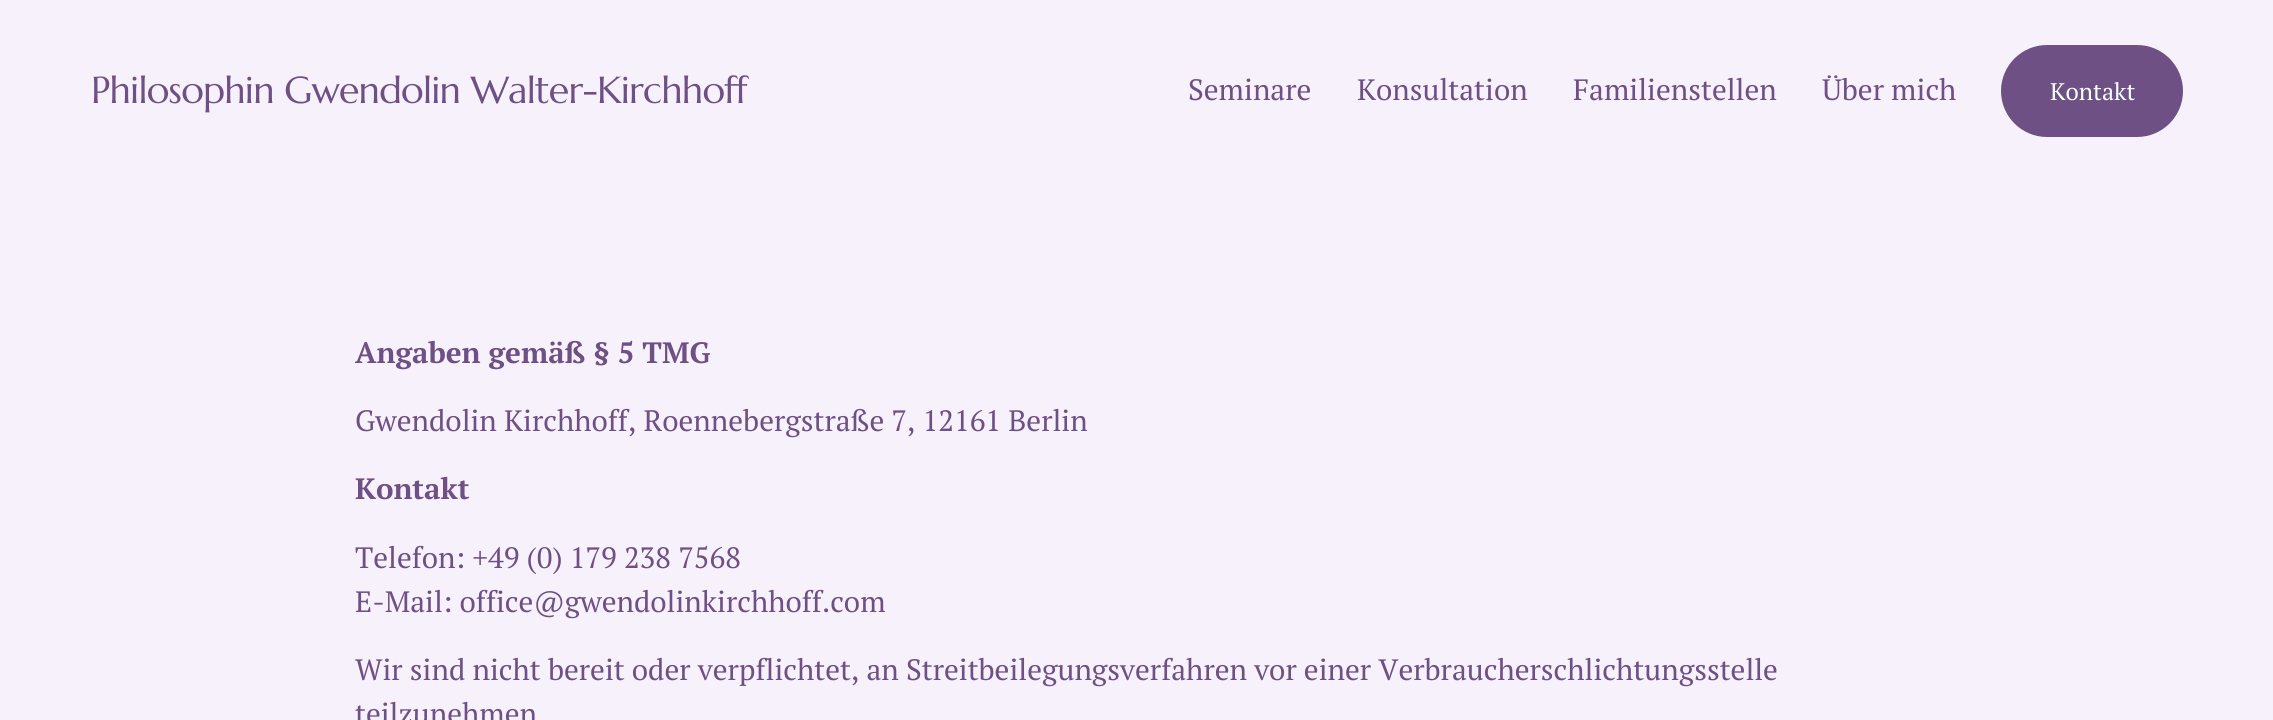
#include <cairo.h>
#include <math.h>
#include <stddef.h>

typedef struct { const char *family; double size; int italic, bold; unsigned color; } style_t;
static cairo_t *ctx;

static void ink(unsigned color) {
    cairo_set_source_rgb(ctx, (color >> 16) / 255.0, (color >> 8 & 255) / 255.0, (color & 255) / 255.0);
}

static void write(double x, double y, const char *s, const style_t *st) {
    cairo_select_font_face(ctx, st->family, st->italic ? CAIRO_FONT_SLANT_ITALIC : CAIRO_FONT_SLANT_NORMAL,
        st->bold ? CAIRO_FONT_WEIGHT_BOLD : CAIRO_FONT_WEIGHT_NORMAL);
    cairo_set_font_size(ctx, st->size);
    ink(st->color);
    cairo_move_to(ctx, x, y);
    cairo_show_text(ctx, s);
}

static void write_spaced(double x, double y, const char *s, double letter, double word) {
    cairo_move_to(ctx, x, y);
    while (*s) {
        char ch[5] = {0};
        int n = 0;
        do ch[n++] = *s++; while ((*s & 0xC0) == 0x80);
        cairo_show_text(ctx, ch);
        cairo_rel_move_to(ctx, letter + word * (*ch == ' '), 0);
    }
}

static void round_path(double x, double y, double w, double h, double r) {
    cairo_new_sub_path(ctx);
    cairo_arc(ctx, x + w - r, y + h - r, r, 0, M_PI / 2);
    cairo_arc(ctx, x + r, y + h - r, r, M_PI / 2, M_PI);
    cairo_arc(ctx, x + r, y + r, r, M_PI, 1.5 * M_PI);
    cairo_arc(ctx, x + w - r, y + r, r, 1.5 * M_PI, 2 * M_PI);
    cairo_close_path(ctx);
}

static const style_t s1 = {"PT Serif", 29.45, 0, 0, 0x6e5084};
static const style_t s2 = {"PT Serif", 24, 0, 0, 0xf5fff9};
static const style_t s3 = {"PT Serif", 29.45, 0, 1, 0x6e5084};

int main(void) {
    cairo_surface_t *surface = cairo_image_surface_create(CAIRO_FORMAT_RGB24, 2273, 720);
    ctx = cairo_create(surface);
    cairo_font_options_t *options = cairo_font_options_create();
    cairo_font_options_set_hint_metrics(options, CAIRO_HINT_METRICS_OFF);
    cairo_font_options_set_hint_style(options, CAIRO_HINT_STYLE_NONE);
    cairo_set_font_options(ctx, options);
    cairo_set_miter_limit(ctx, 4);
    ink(0xf7f1fc);
    cairo_paint(ctx);
    cairo_select_font_face(ctx, "Marcellus", CAIRO_FONT_SLANT_NORMAL, CAIRO_FONT_WEIGHT_NORMAL);
    cairo_set_font_size(ctx, 37.6);
    ink(0x6e5084);
    write_spaced(91, 103, "Philosophin Gwendolin Walter-Kirchhoff", -0.75, 0);
    write(1188, 100, "Seminare", &s1);
    write(1357, 100, "Konsultation", &s1);
    write(1573, 100, "Familienstellen", &s1);
    write(1822, 100, "Über mich", &s1);
    round_path(2001, 45, 182, 92, 46);
    cairo_fill(ctx);
    write(2050, 100, "Kontakt", &s2);
    write(355, 363, "Angaben gemäß § 5 TMG", &s3);
    write(355, 431, "Gwendolin Kirchhoff, Roennebergstraße 7, 12161 Berlin", &s1);
    write(355, 499, "Kontakt", &s3);
    write(355, 568, "Telefon: +49 (0) 179 238 7568", &s1);
    write(355, 612, "E-Mail: office@gwendolinkirchhoff.com", &s1);
    write(355, 680, "Wir sind nicht bereit oder verpflichtet, an Streitbeilegungsverfahren vor einer Verbraucherschlichtungsstelle", &s1);
    write(355, 724, "teilzunehmen", &s1);
    cairo_surface_write_to_png(surface, "screenshot.png");
    cairo_font_options_destroy(options);
    cairo_destroy(ctx);
    cairo_surface_destroy(surface);
    return 0;
}
